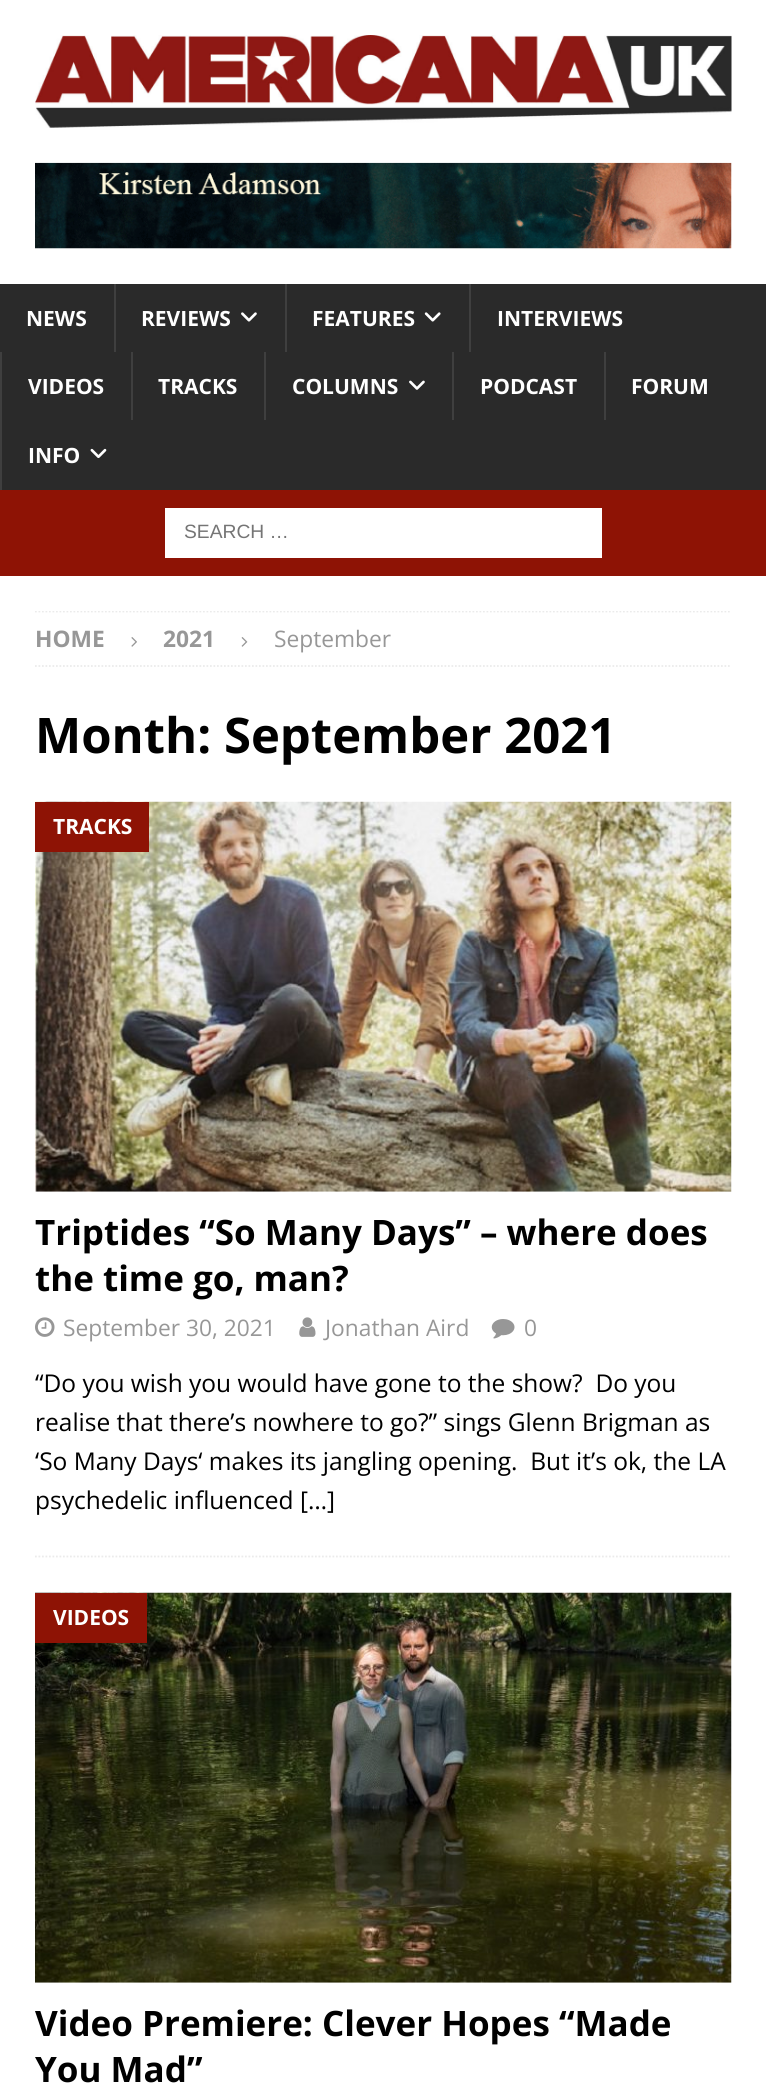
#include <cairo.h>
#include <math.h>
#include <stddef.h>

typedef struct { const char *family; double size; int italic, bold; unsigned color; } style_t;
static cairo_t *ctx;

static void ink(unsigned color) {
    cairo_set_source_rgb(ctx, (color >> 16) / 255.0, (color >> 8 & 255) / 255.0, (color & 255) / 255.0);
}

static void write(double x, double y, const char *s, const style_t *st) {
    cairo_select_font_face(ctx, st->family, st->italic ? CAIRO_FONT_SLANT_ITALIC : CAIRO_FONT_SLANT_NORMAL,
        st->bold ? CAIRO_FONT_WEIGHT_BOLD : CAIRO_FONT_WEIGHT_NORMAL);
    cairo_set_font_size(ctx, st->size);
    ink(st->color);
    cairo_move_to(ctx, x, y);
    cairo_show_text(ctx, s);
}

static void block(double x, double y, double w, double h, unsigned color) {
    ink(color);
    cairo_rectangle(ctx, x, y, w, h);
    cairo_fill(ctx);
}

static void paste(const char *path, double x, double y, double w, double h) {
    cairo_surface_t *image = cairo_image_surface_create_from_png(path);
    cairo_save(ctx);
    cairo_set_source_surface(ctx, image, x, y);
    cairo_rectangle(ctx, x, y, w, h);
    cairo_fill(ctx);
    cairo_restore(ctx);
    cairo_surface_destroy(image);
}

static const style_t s1 = {"Open Sans", 21, 0, 1, 0xffffff};
static const style_t s2 = {"Liberation Sans", 19.25, 0, 0, 0x757575};
static const style_t s3 = {"Open Sans", 22.75, 0, 1, 0x979797};
static const style_t s4 = {"Open Sans", 22.75, 0, 0, 0x979797};
static const style_t s5 = {"Open Sans", 49, 0, 1, 0x000000};
static const style_t s6 = {"Open Sans", 35, 0, 1, 0x000000};
static const style_t s7 = {"Open Sans", 24.5, 0, 0, 0x000000};

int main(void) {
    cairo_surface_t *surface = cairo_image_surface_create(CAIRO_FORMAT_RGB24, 766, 2094);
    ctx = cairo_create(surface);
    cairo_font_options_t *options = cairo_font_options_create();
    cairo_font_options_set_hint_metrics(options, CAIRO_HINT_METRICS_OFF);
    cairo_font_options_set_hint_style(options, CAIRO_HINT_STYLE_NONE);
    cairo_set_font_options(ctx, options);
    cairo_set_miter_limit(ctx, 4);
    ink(0xffffff);
    cairo_paint(ctx);
    paste("pic1.png", 35, 35, 697, 93);
    paste("pic2.png", 35, 162, 697, 87);
    block(0, 284, 766, 206, 0x2a2a2a);
    write(26, 326, "NEWS", &s1);
    block(114, 284, 2, 68, 0x3f3f3f);
    write(141, 326, "REVIEWS", &s1);
    paste("pic3.png", 241, 312, 16, 10);
    block(285, 284, 2, 68, 0x3f3f3f);
    write(312, 326, "FEATURES", &s1);
    paste("pic4.png", 424, 312, 17, 10);
    block(469, 284, 2, 68, 0x3f3f3f);
    write(497, 326, "INTERVIEWS", &s1);
    block(0, 352, 2, 138, 0x3f3f3f);
    write(28, 394, "VIDEOS", &s1);
    block(131, 352, 2, 68, 0x3f3f3f);
    write(158, 394, "TRACKS", &s1);
    block(264, 352, 2, 68, 0x3f3f3f);
    write(292, 394, "COLUMNS", &s1);
    paste("pic5.png", 409, 380, 16, 10);
    block(452, 352, 2, 68, 0x3f3f3f);
    write(480, 394, "PODCAST", &s1);
    block(604, 352, 2, 68, 0x3f3f3f);
    write(631, 394, "FORUM", &s1);
    write(28, 463, "INFO", &s1);
    paste("pic6.png", 90, 448, 17, 10);
    block(0, 490, 766, 86, 0x8e1305);
    block(165, 508, 437, 50, 0xffffff);
    write(184, 538, "SEARCH …", &s2);
    cairo_save(ctx);
    cairo_rectangle(ctx, 35, 611, 697, 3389);
    cairo_clip(ctx);
    cairo_new_path(ctx);
    cairo_move_to(ctx, 35, 611.5);
    cairo_line_to(ctx, 731.5, 611.5);
    ink(0xebebeb);
    cairo_set_line_width(ctx, 1.8);
    cairo_set_dash(ctx, (double[]){1.75, 1.75}, 2, 0);
    cairo_stroke(ctx);
    cairo_restore(ctx);
    cairo_new_path(ctx);
    cairo_move_to(ctx, 35, 666);
    cairo_line_to(ctx, 731.5, 666);
    ink(0xebebeb);
    cairo_set_line_width(ctx, 1.8);
    cairo_set_dash(ctx, (double[]){1.75, 1.75}, 2, 0);
    cairo_stroke(ctx);
    write(35, 647, "HOME", &s3);
    paste("pic7.png", 131, 637, 6, 10);
    write(163, 647, "2021", &s3);
    paste("pic8.png", 241, 637, 7, 10);
    write(274, 647, "September", &s4);
    write(35, 753, "Month: September 2021", &s5);
    cairo_new_path(ctx);
    cairo_move_to(ctx, 35, 1556.5);
    cairo_line_to(ctx, 731.5, 1556.5);
    ink(0xebebeb);
    cairo_stroke(ctx);
    paste("pic9.png", 35, 801, 697, 391);
    block(35, 802, 114, 50, 0x8e1305);
    write(53, 834, "TRACKS", &s1);
    write(35, 1245, "Triptides “So Many Days” – where does", &s6);
    write(35, 1291, "the time go, man?", &s6);
    paste("pic10.png", 35, 1317, 20, 20);
    write(63, 1336, "September 30, 2021", &s4);
    paste("pic11.png", 299, 1317, 17, 20);
    write(325, 1336, "Jonathan Aird", &s4);
    paste("pic12.png", 491, 1319, 24, 20);
    write(524, 1336, "0", &s4);
    write(35, 1392, "“Do you wish you would have gone to the show?  Do you", &s7);
    write(35, 1431, "realise that there’s nowhere to go?” sings Glenn Brigman as", &s7);
    write(35, 1470, "‘So Many Days‘ makes its jangling opening.  But it’s ok, the LA", &s7);
    write(35, 1509, "psychedelic influenced […]", &s7);
    paste("pic13.png", 35, 1592, 697, 391);
    block(35, 1593, 112, 50, 0x8e1305);
    write(53, 1625, "VIDEOS", &s1);
    write(35, 2036, "Video Premiere: Clever Hopes “Made", &s6);
    write(35, 2082, "You Mad”", &s6);
    cairo_surface_write_to_png(surface, "screenshot.png");
    cairo_font_options_destroy(options);
    cairo_destroy(ctx);
    cairo_surface_destroy(surface);
    return 0;
}
